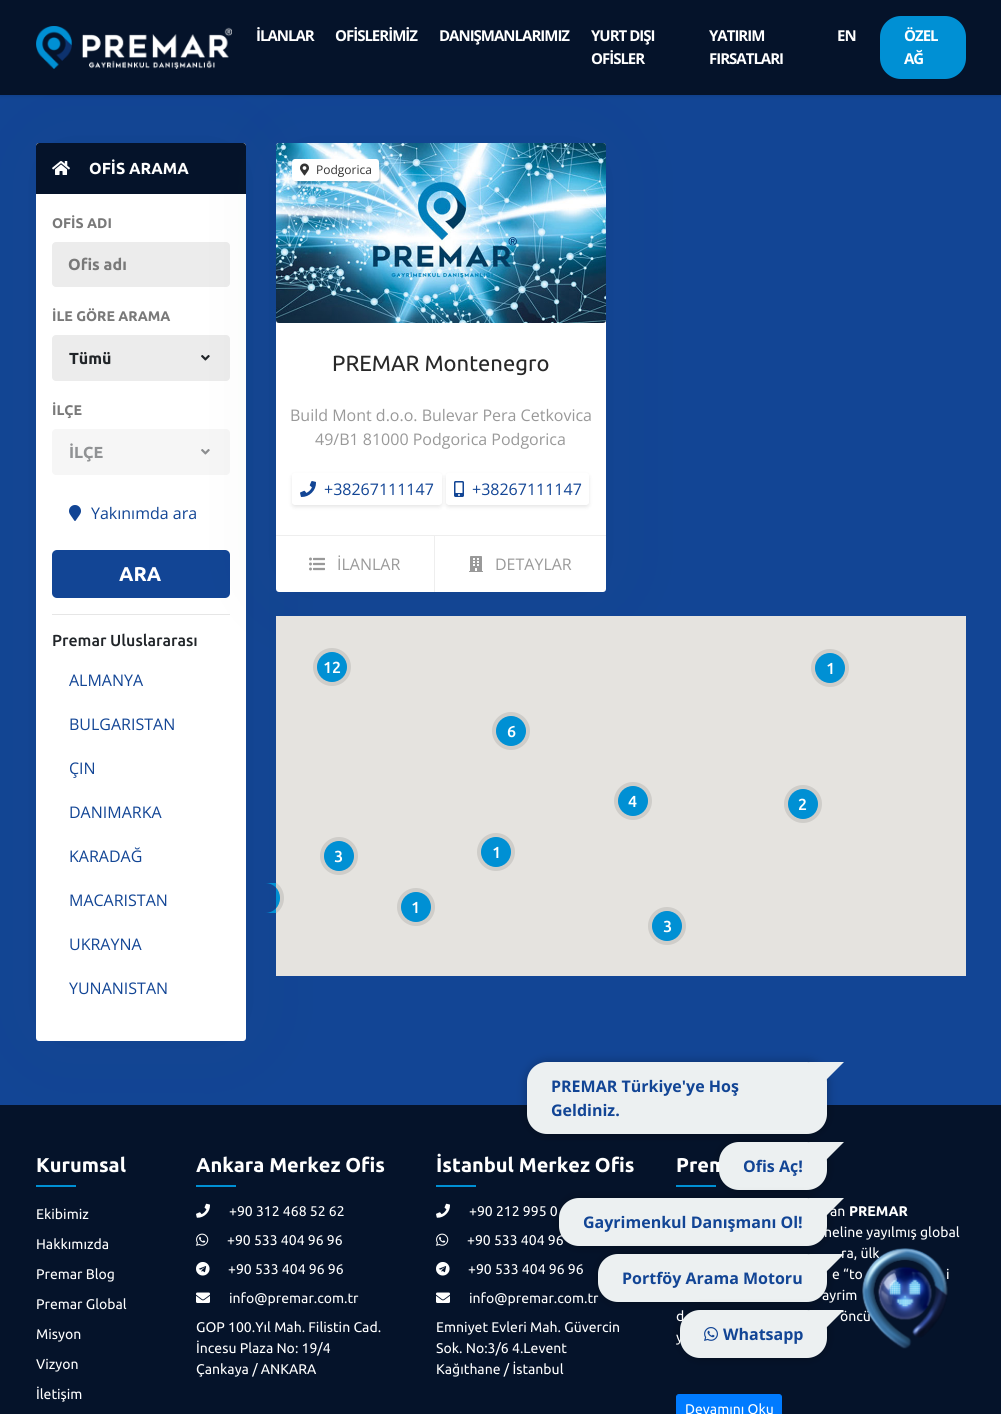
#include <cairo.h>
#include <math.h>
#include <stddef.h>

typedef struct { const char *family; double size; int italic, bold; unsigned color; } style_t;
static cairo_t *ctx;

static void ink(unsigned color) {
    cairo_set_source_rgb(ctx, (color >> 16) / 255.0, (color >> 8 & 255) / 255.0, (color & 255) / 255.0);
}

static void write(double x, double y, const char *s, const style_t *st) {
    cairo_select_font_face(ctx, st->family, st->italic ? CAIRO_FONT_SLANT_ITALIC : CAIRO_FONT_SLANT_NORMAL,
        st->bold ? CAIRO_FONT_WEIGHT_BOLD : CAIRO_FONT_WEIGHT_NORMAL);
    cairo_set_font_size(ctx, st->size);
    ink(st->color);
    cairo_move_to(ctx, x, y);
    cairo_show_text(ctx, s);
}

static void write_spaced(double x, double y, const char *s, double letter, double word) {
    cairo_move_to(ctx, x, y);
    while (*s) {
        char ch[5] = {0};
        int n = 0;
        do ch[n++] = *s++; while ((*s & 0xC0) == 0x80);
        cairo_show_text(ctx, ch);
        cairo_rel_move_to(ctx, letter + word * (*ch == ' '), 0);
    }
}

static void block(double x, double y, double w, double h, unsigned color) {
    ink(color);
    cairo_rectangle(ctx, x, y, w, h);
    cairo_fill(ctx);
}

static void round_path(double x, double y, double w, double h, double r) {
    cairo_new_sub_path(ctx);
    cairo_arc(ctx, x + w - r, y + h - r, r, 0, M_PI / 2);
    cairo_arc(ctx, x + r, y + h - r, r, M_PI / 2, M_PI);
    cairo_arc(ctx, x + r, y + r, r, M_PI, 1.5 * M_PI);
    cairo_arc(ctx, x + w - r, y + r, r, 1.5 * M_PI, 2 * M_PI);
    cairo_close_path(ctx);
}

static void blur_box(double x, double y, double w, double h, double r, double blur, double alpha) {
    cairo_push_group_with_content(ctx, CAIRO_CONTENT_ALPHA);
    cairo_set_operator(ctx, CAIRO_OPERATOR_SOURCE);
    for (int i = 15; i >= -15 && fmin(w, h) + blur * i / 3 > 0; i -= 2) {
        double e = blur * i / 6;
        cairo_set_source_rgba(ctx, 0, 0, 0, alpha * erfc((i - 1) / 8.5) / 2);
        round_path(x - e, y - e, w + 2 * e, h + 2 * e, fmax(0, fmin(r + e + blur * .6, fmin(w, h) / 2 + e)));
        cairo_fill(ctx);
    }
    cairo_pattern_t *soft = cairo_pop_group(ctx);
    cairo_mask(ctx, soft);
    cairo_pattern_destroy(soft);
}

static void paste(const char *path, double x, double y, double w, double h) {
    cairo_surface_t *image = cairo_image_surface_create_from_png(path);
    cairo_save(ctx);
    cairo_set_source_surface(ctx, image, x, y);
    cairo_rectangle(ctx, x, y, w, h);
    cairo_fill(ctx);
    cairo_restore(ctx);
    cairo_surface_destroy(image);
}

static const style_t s1 = {"Ubuntu", 16, 0, 1, 0xffffff};
static const style_t s2 = {"Ubuntu", 14, 0, 1, 0x797979};
static const style_t s3 = {"Ubuntu", 16, 0, 1, 0x797979};
static const style_t s4 = {"Ubuntu", 16, 0, 1, 0x212529};
static const style_t s5 = {"Ubuntu", 16, 0, 1, 0x909294};
static const style_t s6 = {"Open Sans", 16, 0, 0, 0x124595};
static const style_t s7 = {"Ubuntu", 20, 0, 1, 0xffffff};
static const style_t s8 = {"Ubuntu Medium", 16, 0, 0, 0x212529};
static const style_t s9 = {"Open Sans", 12, 0, 0, 0x343434};
static const style_t s10 = {"Ubuntu", 22, 0, 0, 0x282828};
static const style_t s11 = {"Open Sans", 16, 0, 0, 0x999999};
static const style_t s12 = {"Ubuntu Medium", 16, 0, 0, 0xffffff};
static const style_t s13 = {"Open Sans", 16, 0, 1, 0x124595};
static const style_t s14 = {"Ubuntu", 14, 0, 0, 0xffffff};
static const style_t s15 = {"Ubuntu", 14, 0, 1, 0xffffff};

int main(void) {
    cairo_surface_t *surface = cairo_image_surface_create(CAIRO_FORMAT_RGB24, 1001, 1414);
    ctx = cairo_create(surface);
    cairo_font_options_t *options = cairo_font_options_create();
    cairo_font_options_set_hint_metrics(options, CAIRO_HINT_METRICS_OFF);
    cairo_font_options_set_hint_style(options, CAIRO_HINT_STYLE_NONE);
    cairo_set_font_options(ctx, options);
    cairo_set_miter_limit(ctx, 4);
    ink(0x124595);
    cairo_paint(ctx);
    ink(0x000000);
    blur_box(0, 1, 1001, 95, 0, 2, 0.1);
    block(0, 0, 1001, 95, 0x05132a);
    paste("pic1.png", 36, 26, 196, 43);
    cairo_select_font_face(ctx, "Open Sans", CAIRO_FONT_SLANT_NORMAL, CAIRO_FONT_WEIGHT_BOLD);
    cairo_set_font_size(ctx, 15);
    ink(0xffffff);
    write_spaced(256, 41, "İLANLAR", -1, 0);
    write_spaced(335, 41, "OFİSLERİMİZ", -1, 0);
    write_spaced(439, 41, "DANIŞMANLARIMIZ", -1, 0);
    write_spaced(591, 41, "YURT DIŞI", -1, 0);
    write_spaced(591, 64, "OFİSLER", -1, 0);
    write_spaced(709, 41, "YATIRIM", -1, 0);
    write_spaced(709, 64, "FIRSATLARI", -1, 0);
    write_spaced(837, 41, "EN", -1, 0);
    ink(0x0090d4);
    round_path(880, 16, 86, 63, 21);
    cairo_fill(ctx);
    ink(0xffffff);
    write_spaced(904, 41, "ÖZEL", -1, 0);
    write_spaced(904, 64, "AĞ", -1, 0);
    block(0, 1105, 1001, 309, 0x05132a);
    ink(0x292c1c);
    blur_box(51, 158, 180, 868, 0, 45, 0.09);
    ink(0xffffff);
    round_path(36, 143, 210, 898, 3);
    cairo_fill(ctx);
    ink(0x05132a);
    cairo_new_path(ctx);
    cairo_move_to(ctx, 39, 143);
    cairo_line_to(ctx, 243, 143);
    cairo_curve_to(ctx, 244.5, 143, 246, 144.5, 246, 146);
    cairo_line_to(ctx, 246, 194);
    cairo_line_to(ctx, 36, 194);
    cairo_line_to(ctx, 36, 146);
    cairo_curve_to(ctx, 36, 144.5, 37.5, 143, 39, 143);
    cairo_close_path(ctx);
    cairo_fill(ctx);
    paste("pic2.png", 52, 161, 18, 14);
    write(89, 174, "OFİS ARAMA", &s1);
    write(52, 228, "OFİS ADI", &s2);
    ink(0xececec);
    round_path(52.5, 242.5, 177, 44, 3.5);
    cairo_fill_preserve(ctx);
    cairo_set_line_width(ctx, 1);
    cairo_stroke(ctx);
    write(68, 270, "Ofis adı", &s3);
    write(52, 321, "İLE GÖRE ARAMA", &s2);
    ink(0xececec);
    round_path(52, 335, 178, 46, 4);
    cairo_fill(ctx);
    write(69, 364, "Tümü", &s4);
    paste("pic3.png", 201, 355, 9, 6);
    write(52, 415, "İLÇE", &s2);
    ink(0xf6f6f6);
    round_path(52, 429, 178, 46, 4);
    cairo_fill(ctx);
    write(69, 458, "İLÇE", &s5);
    paste("pic4.png", 201, 449, 9, 6);
    paste("pic5.png", 69, 505, 12, 16);
    write(91, 519, "Yakınımda ara", &s6);
    round_path(52, 550, 178, 48, 5);
    cairo_fill(ctx);
    write(119, 581, "ARA", &s7);
    block(52, 614, 178, 1, 0xe6e6e6);
    write(52, 646, "Premar Uluslararası", &s8);
    write(69, 686, "ALMANYA", &s6);
    write(69, 730, "BULGARISTAN", &s6);
    write(69, 774, "ÇIN", &s6);
    write(69, 818, "DANIMARKA", &s6);
    write(69, 862, "KARADAĞ", &s6);
    write(69, 906, "MACARISTAN", &s6);
    write(69, 950, "UKRAYNA", &s6);
    write(69, 994, "YUNANISTAN", &s6);
    ink(0x292c1c);
    blur_box(291, 158, 300, 419, 0, 45, 0.09);
    ink(0xffffff);
    round_path(276, 143, 330, 449, 3);
    cairo_fill(ctx);
    paste("pic6.png", 276, 143, 330, 180);
    cairo_set_source_rgba(ctx, 0, 0, 0, 0.1);
    cairo_new_path(ctx);
    cairo_move_to(ctx, 294, 181);
    cairo_curve_to(ctx, 295, 182, 296, 183, 297, 183);
    cairo_line_to(ctx, 378, 183);
    cairo_curve_to(ctx, 380, 183, 381, 182, 381, 180);
    cairo_line_to(ctx, 381, 164);
    cairo_curve_to(ctx, 381, 163, 380, 162, 379, 161);
    cairo_line_to(ctx, 379, 173);
    cairo_curve_to(ctx, 379, 184, 377, 181, 362, 181);
    cairo_close_path(ctx);
    cairo_fill(ctx);
    ink(0xffffff);
    round_path(292, 159, 87, 22, 3);
    cairo_fill(ctx);
    paste("pic7.png", 300, 163, 9, 13);
    write(316, 174, "Podgorica", &s9);
    write(332, 371, "PREMAR Montenegro", &s10);
    write(290, 421, "Build Mont d.o.o. Bulevar Pera Cetkovica", &s11);
    write(315, 445, "49/B1 81000 Podgorica Podgorica", &s11);
    cairo_save(ctx);
    cairo_set_fill_rule(ctx, CAIRO_FILL_RULE_EVEN_ODD);
    cairo_new_path(ctx);
    cairo_move_to(ctx, 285, 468);
    cairo_line_to(ctx, 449, 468);
    cairo_line_to(ctx, 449, 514);
    cairo_line_to(ctx, 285, 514);
    cairo_close_path(ctx);
    cairo_move_to(ctx, 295, 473);
    cairo_line_to(ctx, 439, 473);
    cairo_curve_to(ctx, 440.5, 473, 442, 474.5, 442, 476);
    cairo_line_to(ctx, 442, 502);
    cairo_curve_to(ctx, 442, 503.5, 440.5, 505, 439, 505);
    cairo_line_to(ctx, 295, 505);
    cairo_curve_to(ctx, 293.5, 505, 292, 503.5, 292, 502);
    cairo_line_to(ctx, 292, 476);
    cairo_curve_to(ctx, 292, 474.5, 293.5, 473, 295, 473);
    cairo_close_path(ctx);
    cairo_clip(ctx);
    ink(0x000000);
    blur_box(292, 475, 150, 32, 3, 2, 0.1);
    cairo_restore(ctx);
    paste("pic8.png", 300, 481, 16, 16);
    write(324, 495, "+38267111147", &s6);
    cairo_save(ctx);
    cairo_set_fill_rule(ctx, CAIRO_FILL_RULE_EVEN_ODD);
    cairo_new_path(ctx);
    cairo_move_to(ctx, 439, 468);
    cairo_line_to(ctx, 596, 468);
    cairo_line_to(ctx, 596, 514);
    cairo_line_to(ctx, 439, 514);
    cairo_close_path(ctx);
    cairo_move_to(ctx, 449, 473);
    cairo_line_to(ctx, 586, 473);
    cairo_curve_to(ctx, 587.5, 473, 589, 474.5, 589, 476);
    cairo_line_to(ctx, 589, 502);
    cairo_curve_to(ctx, 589, 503.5, 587.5, 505, 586, 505);
    cairo_line_to(ctx, 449, 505);
    cairo_curve_to(ctx, 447.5, 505, 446, 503.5, 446, 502);
    cairo_line_to(ctx, 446, 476);
    cairo_curve_to(ctx, 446, 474.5, 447.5, 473, 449, 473);
    cairo_close_path(ctx);
    cairo_clip(ctx);
    ink(0x000000);
    blur_box(446, 475, 143, 32, 3, 2, 0.1);
    cairo_restore(ctx);
    paste("pic9.png", 454, 481, 10, 16);
    write(472, 495, "+38267111147", &s6);
    block(276, 535, 330, 1, 0xeeeeee);
    block(434, 535, 1, 57, 0xeeeeee);
    paste("pic10.png", 309, 557, 16, 14);
    write(337, 570, "İLANLAR", &s11);
    paste("pic11.png", 469, 556, 14, 16);
    write(495, 570, "DETAYLAR", &s11);
    block(276, 616, 690, 360, 0xe5e3df);
    cairo_new_path(ctx);
    cairo_arc(ctx, 332, 667, 11.5, 0, 2 * M_PI);
    ink(0xb7d2dd);
    cairo_set_line_width(ctx, 7);
    cairo_stroke(ctx);
    ink(0x0090d4);
    cairo_arc(ctx, 332, 667, 15, 0, 2 * M_PI);
    cairo_fill(ctx);
    cairo_arc(ctx, 332, 667, 17, 0, 2 * M_PI);
    cairo_set_source_rgba(ctx, 0, 0, 0, 0.1);
    cairo_set_line_width(ctx, 4);
    cairo_stroke(ctx);
    write(323, 673, "12", &s12);
    cairo_new_path(ctx);
    cairo_arc(ctx, 830, 668, 11.5, 0, 2 * M_PI);
    ink(0xb7d2dd);
    cairo_set_line_width(ctx, 7);
    cairo_stroke(ctx);
    ink(0x0090d4);
    cairo_arc(ctx, 830, 668, 15, 0, 2 * M_PI);
    cairo_fill(ctx);
    cairo_arc(ctx, 830, 668, 17, 0, 2 * M_PI);
    cairo_set_source_rgba(ctx, 0, 0, 0, 0.1);
    cairo_set_line_width(ctx, 4);
    cairo_stroke(ctx);
    write(826, 674, "1", &s12);
    cairo_new_path(ctx);
    cairo_arc(ctx, 511, 731, 11.5, 0, 2 * M_PI);
    ink(0xb7d2dd);
    cairo_set_line_width(ctx, 7);
    cairo_stroke(ctx);
    ink(0x0090d4);
    cairo_arc(ctx, 511, 731, 15, 0, 2 * M_PI);
    cairo_fill(ctx);
    cairo_arc(ctx, 511, 731, 17, 0, 2 * M_PI);
    cairo_set_source_rgba(ctx, 0, 0, 0, 0.1);
    cairo_set_line_width(ctx, 4);
    cairo_stroke(ctx);
    write(507, 737, "6", &s12);
    cairo_new_path(ctx);
    cairo_arc(ctx, 633, 801, 11.5, 0, 2 * M_PI);
    ink(0xb7d2dd);
    cairo_set_line_width(ctx, 7);
    cairo_stroke(ctx);
    ink(0x0090d4);
    cairo_arc(ctx, 633, 801, 15, 0, 2 * M_PI);
    cairo_fill(ctx);
    cairo_arc(ctx, 633, 801, 17, 0, 2 * M_PI);
    cairo_set_source_rgba(ctx, 0, 0, 0, 0.1);
    cairo_set_line_width(ctx, 4);
    cairo_stroke(ctx);
    write(628, 807, "4", &s12);
    cairo_new_path(ctx);
    cairo_arc(ctx, 803, 804, 11.5, 0, 2 * M_PI);
    ink(0xb7d2dd);
    cairo_set_line_width(ctx, 7);
    cairo_stroke(ctx);
    ink(0x0090d4);
    cairo_arc(ctx, 803, 804, 15, 0, 2 * M_PI);
    cairo_fill(ctx);
    cairo_arc(ctx, 803, 804, 17, 0, 2 * M_PI);
    cairo_set_source_rgba(ctx, 0, 0, 0, 0.1);
    cairo_set_line_width(ctx, 4);
    cairo_stroke(ctx);
    write(798, 810, "2", &s12);
    cairo_new_path(ctx);
    cairo_arc(ctx, 339, 856, 11.5, 0, 2 * M_PI);
    ink(0xb7d2dd);
    cairo_set_line_width(ctx, 7);
    cairo_stroke(ctx);
    ink(0x0090d4);
    cairo_arc(ctx, 339, 856, 15, 0, 2 * M_PI);
    cairo_fill(ctx);
    cairo_arc(ctx, 339, 856, 17, 0, 2 * M_PI);
    cairo_set_source_rgba(ctx, 0, 0, 0, 0.1);
    cairo_set_line_width(ctx, 4);
    cairo_stroke(ctx);
    write(334, 862, "3", &s12);
    cairo_new_path(ctx);
    cairo_arc(ctx, 496, 852, 11.5, 0, 2 * M_PI);
    ink(0xb7d2dd);
    cairo_set_line_width(ctx, 7);
    cairo_stroke(ctx);
    ink(0x0090d4);
    cairo_arc(ctx, 496, 852, 15, 0, 2 * M_PI);
    cairo_fill(ctx);
    cairo_arc(ctx, 496, 852, 17, 0, 2 * M_PI);
    cairo_set_source_rgba(ctx, 0, 0, 0, 0.1);
    cairo_set_line_width(ctx, 4);
    cairo_stroke(ctx);
    write(492, 858, "1", &s12);
    cairo_save(ctx);
    cairo_rectangle(ctx, 276, 616, 690, 360);
    cairo_clip(ctx);
    cairo_arc(ctx, 265, 898, 11.5, 0, 2 * M_PI);
    ink(0xb7d2dd);
    cairo_set_line_width(ctx, 7);
    cairo_stroke(ctx);
    cairo_restore(ctx);
    ink(0x0090d4);
    cairo_new_path(ctx);
    cairo_move_to(ctx, 276, 883);
    cairo_line_to(ctx, 265, 883);
    cairo_curve_to(ctx, 273.5, 883, 280, 889.5, 280, 898);
    cairo_curve_to(ctx, 280, 906.5, 273.5, 913, 265, 913);
    cairo_line_to(ctx, 276, 913);
    cairo_close_path(ctx);
    cairo_fill(ctx);
    cairo_save(ctx);
    cairo_rectangle(ctx, 276, 616, 690, 360);
    cairo_clip(ctx);
    cairo_arc(ctx, 265, 898, 17, 0, 2 * M_PI);
    cairo_set_source_rgba(ctx, 0, 0, 0, 0.1);
    cairo_stroke(ctx);
    cairo_restore(ctx);
    cairo_arc(ctx, 416, 907, 11.5, 0, 2 * M_PI);
    ink(0xb7d2dd);
    cairo_set_line_width(ctx, 7);
    cairo_stroke(ctx);
    ink(0x0090d4);
    cairo_arc(ctx, 416, 907, 15, 0, 2 * M_PI);
    cairo_fill(ctx);
    cairo_arc(ctx, 416, 907, 17, 0, 2 * M_PI);
    cairo_set_source_rgba(ctx, 0, 0, 0, 0.1);
    cairo_set_line_width(ctx, 4);
    cairo_stroke(ctx);
    write(411, 913, "1", &s12);
    cairo_new_path(ctx);
    cairo_arc(ctx, 667, 926, 11.5, 0, 2 * M_PI);
    ink(0xb7d2dd);
    cairo_set_line_width(ctx, 7);
    cairo_stroke(ctx);
    ink(0x0090d4);
    cairo_arc(ctx, 667, 926, 15, 0, 2 * M_PI);
    cairo_fill(ctx);
    cairo_arc(ctx, 667, 926, 17, 0, 2 * M_PI);
    cairo_set_source_rgba(ctx, 0, 0, 0, 0.1);
    cairo_set_line_width(ctx, 4);
    cairo_stroke(ctx);
    write(663, 932, "3", &s12);
    ink(0x000000);
    blur_box(527, 1062, 300, 72, 20, 5, 0.3);
    ink(0xecf0f1);
    round_path(527, 1062, 300, 72, 20);
    cairo_fill(ctx);
    cairo_new_path(ctx);
    cairo_move_to(ctx, 809, 1062);
    cairo_line_to(ctx, 844, 1062);
    cairo_line_to(ctx, 819, 1087);
    cairo_close_path(ctx);
    cairo_fill(ctx);
    write(551, 1092, "PREMAR Türkiye'ye Hoş", &s13);
    write(551, 1116, "Geldiniz.", &s13);
    block(676, 1185, 40, 2, 0x0090d4);
    ink(0x000000);
    blur_box(719, 1142, 108, 48, 20, 5, 0.3);
    write(676, 1172, "Prem", &s7);
    ink(0xecf0f1);
    round_path(719, 1142, 108, 48, 20);
    cairo_fill(ctx);
    write(743, 1172, "Ofis Aç!", &s13);
    ink(0xecf0f1);
    cairo_new_path(ctx);
    cairo_move_to(ctx, 809, 1142);
    cairo_line_to(ctx, 844, 1142);
    cairo_line_to(ctx, 819, 1167);
    cairo_close_path(ctx);
    cairo_fill(ctx);
    ink(0x000000);
    blur_box(559, 1198, 268, 48, 20, 5, 0.3);
    write(467, 1245, "+90 533 404 96", &s14);
    write(824, 1237, "neline yayılmış global", &s14);
    ink(0xecf0f1);
    round_path(559, 1198, 268, 48, 20);
    cairo_fill(ctx);
    write(583, 1228, "Gayrimenkul Danışmanı Ol!", &s13);
    write(830, 1216, "an", &s14);
    ink(0xecf0f1);
    cairo_new_path(ctx);
    cairo_move_to(ctx, 809, 1198);
    cairo_line_to(ctx, 844, 1198);
    cairo_line_to(ctx, 819, 1223);
    cairo_close_path(ctx);
    cairo_fill(ctx);
    ink(0x000000);
    blur_box(598, 1254, 229, 48, 20, 5, 0.3);
    write(469, 1303, "info@premar.com.tr", &s14);
    write(822, 1300, "ayrim", &s14);
    ink(0xecf0f1);
    round_path(598, 1254, 229, 48, 20);
    cairo_fill(ctx);
    write(622, 1284, "Portföy Arama Motoru", &s13);
    write(841, 1258, "ra, ülk", &s14);
    write(832, 1279, "e “to", &s14);
    ink(0xecf0f1);
    cairo_new_path(ctx);
    cairo_move_to(ctx, 809, 1254);
    cairo_line_to(ctx, 844, 1254);
    cairo_line_to(ctx, 819, 1279);
    cairo_close_path(ctx);
    cairo_fill(ctx);
    ink(0x000000);
    blur_box(680, 1310, 147, 48, 20, 5, 0.3);
    write(676, 1321, "d", &s14);
    write(676, 1342, "y", &s14);
    ink(0xecf0f1);
    round_path(680, 1310, 147, 48, 20);
    cairo_fill(ctx);
    paste("pic12.png", 704, 1327, 14, 14);
    write(723, 1340, "Whatsapp", &s13);
    write(840, 1321, "öncü", &s14);
    ink(0xecf0f1);
    cairo_new_path(ctx);
    cairo_move_to(ctx, 809, 1310);
    cairo_line_to(ctx, 844, 1310);
    cairo_line_to(ctx, 819, 1335);
    cairo_close_path(ctx);
    cairo_fill(ctx);
    write(946, 1279, "i", &s14);
    paste("pic13.png", 862, 1248, 86, 101);
    write(36, 1172, "Kurumsal", &s7);
    block(36, 1185, 40, 2, 0x0090d4);
    write(36, 1219, "Ekibimiz", &s14);
    write(36, 1249, "Hakkımızda", &s14);
    write(36, 1279, "Premar Blog", &s14);
    write(36, 1309, "Premar Global", &s14);
    write(36, 1339, "Misyon", &s14);
    write(36, 1369, "Vizyon", &s14);
    write(36, 1399, "İletişim", &s14);
    write(196, 1172, "Ankara Merkez Ofis", &s7);
    block(196, 1185, 40, 2, 0x0090d4);
    paste("pic14.png", 196, 1203, 14, 15);
    write(229, 1216, "+90 312 468 52 62", &s14);
    paste("pic15.png", 196, 1233, 13, 13);
    write(227, 1245, "+90 533 404 96 96", &s14);
    paste("pic16.png", 196, 1262, 14, 14);
    write(228, 1274, "+90 533 404 96 96", &s14);
    paste("pic17.png", 196, 1292, 14, 11);
    write(229, 1303, "info@premar.com.tr", &s14);
    write(196, 1332, "GOP 100.Yıl Mah. Filistin Cad.", &s14);
    write(196, 1353, "İncesu Plaza No: 19/4", &s14);
    write(196, 1374, "Çankaya / ANKARA", &s14);
    write(436, 1172, "İstanbul Merkez Ofis", &s7);
    block(436, 1185, 40, 2, 0x0090d4);
    paste("pic14.png", 436, 1203, 14, 15);
    write(469, 1216, "+90 212 995 0", &s14);
    paste("pic15.png", 436, 1233, 13, 13);
    paste("pic16.png", 436, 1262, 14, 14);
    write(468, 1274, "+90 533 404 96 96", &s14);
    paste("pic17.png", 436, 1292, 14, 11);
    write(436, 1332, "Emniyet Evleri Mah. Güvercin", &s14);
    write(436, 1353, "Sok. No:3/6 4.Levent", &s14);
    write(436, 1374, "Kağıthane / İstanbul", &s14);
    write(849, 1216, "PREMAR", &s15);
    ink(0x007bff);
    round_path(676.5, 1394.5, 105, 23, 2.5);
    cairo_fill_preserve(ctx);
    cairo_set_line_width(ctx, 1);
    cairo_stroke(ctx);
    write(685, 1414, "Devamını Oku", &s14);
    cairo_surface_write_to_png(surface, "screenshot.png");
    cairo_font_options_destroy(options);
    cairo_destroy(ctx);
    cairo_surface_destroy(surface);
    return 0;
}
